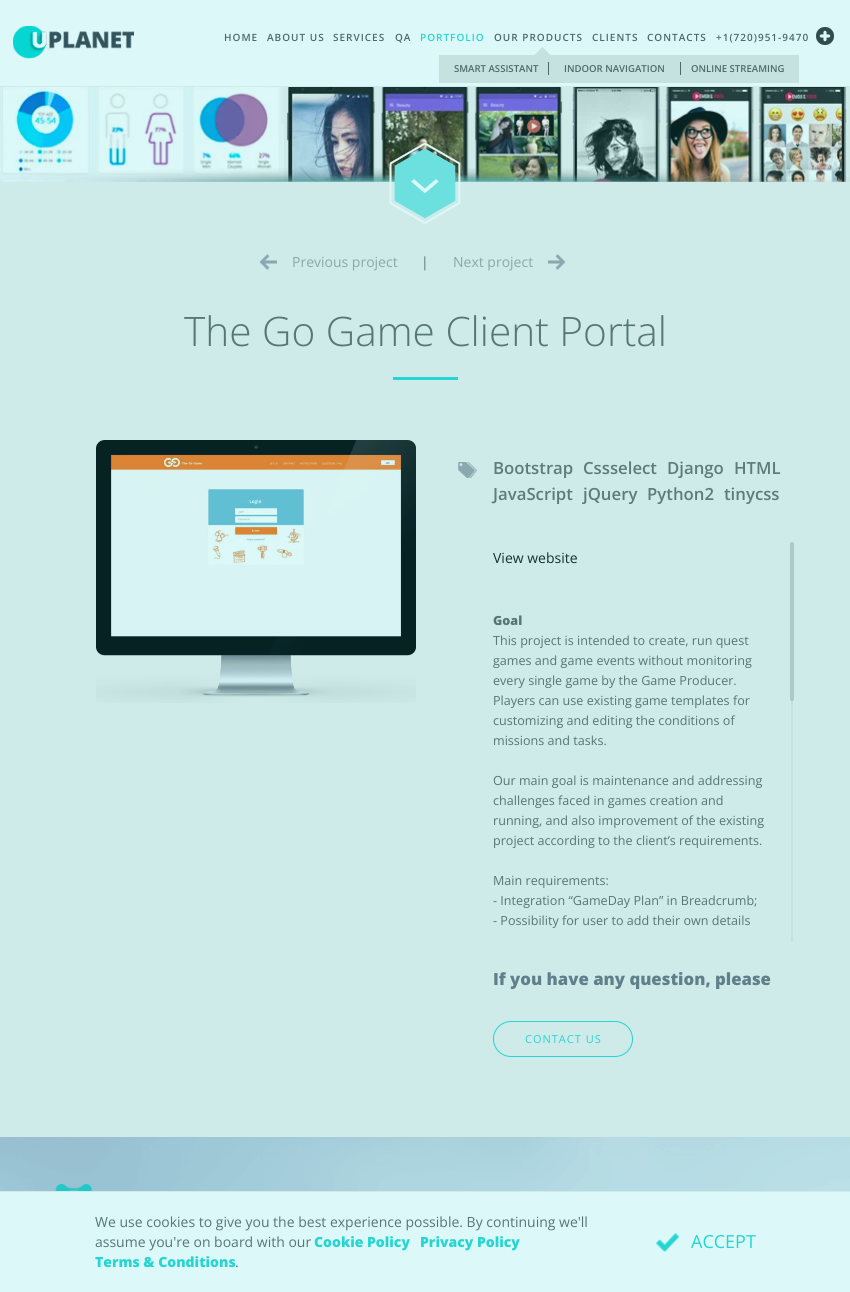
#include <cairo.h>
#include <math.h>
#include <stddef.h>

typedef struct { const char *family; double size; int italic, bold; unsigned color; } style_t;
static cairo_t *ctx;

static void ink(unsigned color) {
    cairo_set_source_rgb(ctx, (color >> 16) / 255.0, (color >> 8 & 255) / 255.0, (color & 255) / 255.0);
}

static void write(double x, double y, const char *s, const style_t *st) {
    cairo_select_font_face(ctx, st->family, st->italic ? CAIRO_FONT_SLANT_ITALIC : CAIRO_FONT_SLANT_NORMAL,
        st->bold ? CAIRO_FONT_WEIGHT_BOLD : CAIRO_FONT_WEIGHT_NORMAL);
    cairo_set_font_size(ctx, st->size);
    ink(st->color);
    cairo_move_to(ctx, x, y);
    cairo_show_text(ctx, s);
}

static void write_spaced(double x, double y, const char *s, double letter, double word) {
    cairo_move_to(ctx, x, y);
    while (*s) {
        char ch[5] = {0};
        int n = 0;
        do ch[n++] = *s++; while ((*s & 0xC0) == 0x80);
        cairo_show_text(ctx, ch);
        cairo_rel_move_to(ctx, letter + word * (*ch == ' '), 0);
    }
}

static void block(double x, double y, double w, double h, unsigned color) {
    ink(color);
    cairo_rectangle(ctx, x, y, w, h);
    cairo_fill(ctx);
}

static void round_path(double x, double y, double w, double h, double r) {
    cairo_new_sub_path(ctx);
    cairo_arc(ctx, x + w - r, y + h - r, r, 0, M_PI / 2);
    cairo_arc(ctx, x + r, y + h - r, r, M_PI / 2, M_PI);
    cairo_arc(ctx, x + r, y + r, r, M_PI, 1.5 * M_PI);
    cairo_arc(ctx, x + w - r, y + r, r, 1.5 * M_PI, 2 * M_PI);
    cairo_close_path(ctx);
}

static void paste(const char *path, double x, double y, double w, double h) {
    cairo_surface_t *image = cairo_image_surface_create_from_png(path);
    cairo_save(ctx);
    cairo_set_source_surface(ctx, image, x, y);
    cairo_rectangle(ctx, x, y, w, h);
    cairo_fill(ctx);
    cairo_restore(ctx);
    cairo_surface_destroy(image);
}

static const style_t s1 = {"Open Sans SemiBold", 9.6, 0, 0, 0x4d6969};
static const style_t s2 = {"Open Sans", 14, 0, 0, 0x8ba8a7};
static const style_t s3 = {"Open Sans", 14, 0, 0, 0x567678};
static const style_t s4 = {"Open Sans Light", 40.6, 0, 0, 0x567678};
static const style_t s5 = {"Open Sans SemiBold", 16.75, 0, 0, 0x5e7a7a};
static const style_t s6 = {"Open Sans", 14, 0, 0, 0x143030};
static const style_t s7 = {"Open Sans ExtraBold", 12.6, 0, 0, 0x567678};
static const style_t s8 = {"Open Sans", 12.6, 0, 0, 0x567678};
static const style_t s9 = {"Open Sans ExtraBold", 16.75, 0, 0, 0x5f7f8a};
static const style_t s10 = {"Open Sans ExtraBold", 14, 0, 0, 0x24d5d1};
static const style_t s11 = {"Open Sans", 18, 0, 0, 0x24d5d1};

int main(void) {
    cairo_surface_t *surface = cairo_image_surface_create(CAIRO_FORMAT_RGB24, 850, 1292);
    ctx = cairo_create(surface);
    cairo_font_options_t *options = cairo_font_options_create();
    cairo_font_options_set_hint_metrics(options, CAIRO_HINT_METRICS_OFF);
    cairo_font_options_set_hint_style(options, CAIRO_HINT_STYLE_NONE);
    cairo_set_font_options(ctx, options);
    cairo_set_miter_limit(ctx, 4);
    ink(0xceeae9);
    cairo_paint(ctx);
    block(0, 0, 850, 86, 0xdcf8f8);
    paste("pic1.png", 13, 26, 121, 33);
    cairo_select_font_face(ctx, "Open Sans SemiBold", CAIRO_FONT_SLANT_NORMAL, CAIRO_FONT_WEIGHT_NORMAL);
    cairo_set_font_size(ctx, 10);
    ink(0x4d6969);
    write_spaced(224, 41, "HOME", 1, 0);
    write_spaced(267, 41, "ABOUT US", 1, 0);
    write_spaced(333, 41, "SERVICES", 1, 0);
    write_spaced(395, 41, "QA", 1, 0);
    ink(0x24d5d1);
    write_spaced(420, 41, "PORTFOLIO", 1, 0);
    ink(0x4d6969);
    write_spaced(494, 41, "OUR PRODUCTS", 1, 0);
    block(439, 55, 360, 28, 0xc5e2e1);
    paste("pic2.png", 534, 47, 17, 8);
    write(454, 72, "SMART ASSISTANT", &s1);
    block(548, 62, 1, 13, 0x4d6969);
    write(564, 72, "INDOOR NAVIGATION", &s1);
    block(680, 62, 1, 13, 0x4d6969);
    write(691, 72, "ONLINE STREAMING", &s1);
    cairo_set_font_size(ctx, 10);
    write_spaced(592, 41, "CLIENTS", 1, 0);
    write_spaced(647, 41, "CONTACTS", 1, 0);
    write_spaced(716, 41, "+1(720)951-9470", 1, 0);
    paste("pic3.png", 816, 27, 18, 18);
    paste("pic4.png", 0, 87, 284, 95);
    paste("pic5.png", 287, 87, 276, 95);
    paste("pic6.png", 572, 87, 275, 95);
    paste("pic7.png", 0, 168, 850, 14);
    paste("pic8.png", 389, 142, 72, 82);
    paste("pic9.png", 260, 254, 17, 16);
    write(292, 267, "Previous project", &s2);
    write(421, 267, "|", &s3);
    write(453, 267, "Next project", &s2);
    paste("pic10.png", 548, 254, 17, 16);
    write(184, 346, "The Go Game Client Portal", &s4);
    block(393, 377, 65, 3, 0x24d5d1);
    paste("pic11.png", 96, 440, 320, 263);
    paste("pic12.png", 458, 462, 19, 16);
    write(493, 474, "Bootstrap", &s5);
    write(583, 474, "Cssselect", &s5);
    write(667, 474, "Django", &s5);
    write(734, 474, "HTML", &s5);
    write(493, 500, "JavaScript", &s5);
    write(583, 500, "jQuery", &s5);
    write(647, 500, "Python2", &s5);
    write(724, 500, "tinycss", &s5);
    write(493, 563, "View website", &s6);
    write(493, 625, "Goal", &s7);
    write(493, 645, "This project is intended to create, run quest", &s8);
    write(493, 665, "games and game events without monitoring", &s8);
    write(493, 685, "every single game by the Game Producer.", &s8);
    write(493, 705, "Players can use existing game templates for", &s8);
    write(493, 725, "customizing and editing the conditions of", &s8);
    write(493, 745, "missions and tasks.", &s8);
    write(493, 785, "Our main goal is maintenance and addressing", &s8);
    write(493, 805, "challenges faced in games creation and", &s8);
    write(493, 825, "running, and also improvement of the existing", &s8);
    write(493, 845, "project according to the client’s requirements.", &s8);
    write(493, 885, "Main requirements:", &s8);
    write(493, 905, "- Integration “GameDay Plan” in Breadcrumb;", &s8);
    write(493, 925, "- Possibility for user to add their own details", &s8);
    ink(0xc5e2e1);
    round_path(791, 542, 2, 400, 1);
    cairo_fill(ctx);
    ink(0xacc8c8);
    round_path(790, 542, 4, 159, 2);
    cairo_fill(ctx);
    write(493, 985, "If you have any question, please", &s9);
    round_path(493.5, 1021.5, 139, 35, 17.5);
    ink(0x24d5d1);
    cairo_set_line_width(ctx, 1);
    cairo_stroke(ctx);
    cairo_select_font_face(ctx, "Open Sans", CAIRO_FONT_SLANT_NORMAL, CAIRO_FONT_WEIGHT_NORMAL);
    cairo_set_font_size(ctx, 11);
    write_spaced(525, 1043, "CONTACT US", 1, 0);
    paste("pic13.png", 0, 1137, 850, 54);
    paste("pic14.png", 55, 1184, 38, 7);
    block(0, 1192, 850, 100, 0xdcf8f8);
    write(95, 1227, "We use cookies to give you the best experience possible. By continuing we'll", &s3);
    write(95, 1247, "assume you're on board with our", &s3);
    write(314, 1247, "Cookie Policy", &s10);
    write(420, 1247, "Privacy Policy", &s10);
    write(95, 1267, "Terms & Conditions", &s10);
    write(235, 1267, ".", &s3);
    paste("pic15.png", 656, 1233, 23, 19);
    write(691, 1248, "ACCEPT", &s11);
    cairo_surface_write_to_png(surface, "screenshot.png");
    cairo_font_options_destroy(options);
    cairo_destroy(ctx);
    cairo_surface_destroy(surface);
    return 0;
}
